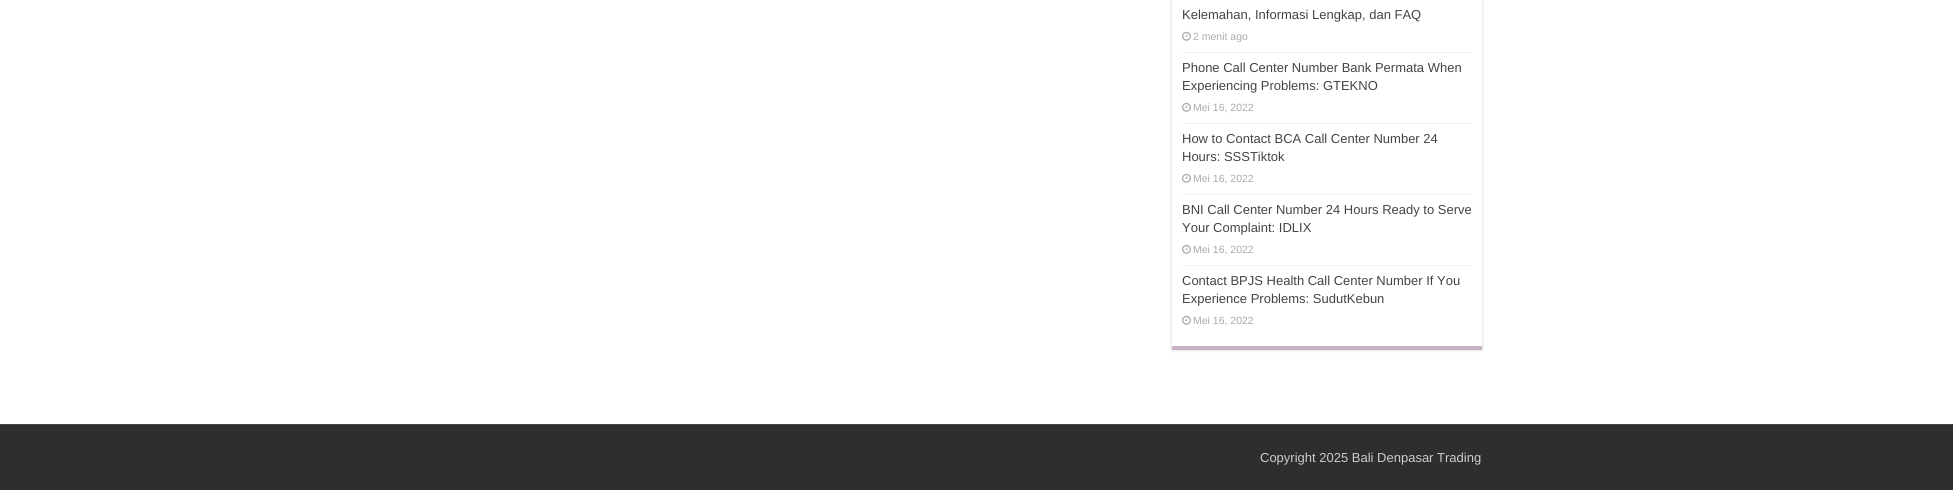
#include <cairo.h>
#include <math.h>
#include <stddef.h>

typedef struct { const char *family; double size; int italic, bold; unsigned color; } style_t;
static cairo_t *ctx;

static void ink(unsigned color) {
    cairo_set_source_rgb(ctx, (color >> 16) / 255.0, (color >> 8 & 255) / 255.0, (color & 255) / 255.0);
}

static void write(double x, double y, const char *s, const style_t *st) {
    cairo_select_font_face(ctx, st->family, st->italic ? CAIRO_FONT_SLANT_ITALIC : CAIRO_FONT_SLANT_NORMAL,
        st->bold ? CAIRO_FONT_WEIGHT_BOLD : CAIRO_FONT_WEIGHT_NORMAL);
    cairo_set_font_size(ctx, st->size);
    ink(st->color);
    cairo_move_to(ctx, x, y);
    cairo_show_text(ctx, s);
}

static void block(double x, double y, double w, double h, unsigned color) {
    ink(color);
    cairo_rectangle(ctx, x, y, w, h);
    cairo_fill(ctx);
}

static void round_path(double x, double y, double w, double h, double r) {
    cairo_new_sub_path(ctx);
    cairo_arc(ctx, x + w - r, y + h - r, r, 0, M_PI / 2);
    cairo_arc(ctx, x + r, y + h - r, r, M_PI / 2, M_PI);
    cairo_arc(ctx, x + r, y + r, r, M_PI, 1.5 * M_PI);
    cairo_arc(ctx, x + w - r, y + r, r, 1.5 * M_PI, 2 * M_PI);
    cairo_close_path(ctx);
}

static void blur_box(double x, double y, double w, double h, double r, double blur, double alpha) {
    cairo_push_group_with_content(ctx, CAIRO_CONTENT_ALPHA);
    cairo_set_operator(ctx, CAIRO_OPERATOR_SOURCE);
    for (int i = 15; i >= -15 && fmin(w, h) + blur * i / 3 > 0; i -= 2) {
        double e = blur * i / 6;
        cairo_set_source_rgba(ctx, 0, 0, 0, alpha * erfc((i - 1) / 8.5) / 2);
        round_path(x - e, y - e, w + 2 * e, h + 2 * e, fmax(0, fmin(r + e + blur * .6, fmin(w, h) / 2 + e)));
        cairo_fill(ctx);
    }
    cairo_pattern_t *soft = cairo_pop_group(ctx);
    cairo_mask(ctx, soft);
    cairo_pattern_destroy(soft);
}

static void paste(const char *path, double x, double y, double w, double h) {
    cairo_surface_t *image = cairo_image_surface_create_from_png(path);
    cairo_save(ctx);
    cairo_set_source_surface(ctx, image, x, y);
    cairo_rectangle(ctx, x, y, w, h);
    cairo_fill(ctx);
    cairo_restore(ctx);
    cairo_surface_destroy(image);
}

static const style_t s1 = {"Liberation Sans", 13, 0, 0, 0x444444};
static const style_t s2 = {"Liberation Sans", 10.5, 0, 0, 0xaaaaaa};
static const style_t s3 = {"Liberation Sans", 13, 0, 0, 0xcccccc};

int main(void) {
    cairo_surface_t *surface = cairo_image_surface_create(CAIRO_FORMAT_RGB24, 1953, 490);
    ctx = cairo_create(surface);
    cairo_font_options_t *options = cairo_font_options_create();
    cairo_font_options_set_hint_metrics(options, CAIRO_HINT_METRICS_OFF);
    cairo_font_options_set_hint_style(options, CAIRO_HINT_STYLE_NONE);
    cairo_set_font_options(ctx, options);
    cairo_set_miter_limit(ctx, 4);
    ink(0xffffff);
    cairo_paint(ctx);
    cairo_save(ctx);
    cairo_set_fill_rule(ctx, CAIRO_FILL_RULE_EVEN_ODD);
    cairo_new_path(ctx);
    cairo_move_to(ctx, 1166, 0);
    cairo_line_to(ctx, 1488, 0);
    cairo_line_to(ctx, 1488, 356);
    cairo_line_to(ctx, 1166, 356);
    cairo_close_path(ctx);
    cairo_move_to(ctx, 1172, -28);
    cairo_line_to(ctx, 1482, -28);
    cairo_line_to(ctx, 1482, 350);
    cairo_line_to(ctx, 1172, 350);
    cairo_close_path(ctx);
    cairo_clip(ctx);
    ink(0xcacaca);
    blur_box(1172, -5, 310, 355, 0, 1.5, 1);
    cairo_restore(ctx);
    block(1172, 346, 310, 4, 0xc7b1c7);
    block(1182, 52, 290, 1, 0xf2f2f2);
    write(1182, 19, "Kelemahan, Informasi Lengkap, dan FAQ", &s1);
    paste("pic1.png", 1182, 31, 9, 10);
    write(1193, 40, "2 menit ago", &s2);
    block(1182, 123, 290, 1, 0xf2f2f2);
    write(1182, 72, "Phone Call Center Number Bank Permata When", &s1);
    write(1182, 90, "Experiencing Problems: GTEKNO", &s1);
    paste("pic1.png", 1182, 102, 9, 10);
    write(1193, 111, "Mei 16, 2022", &s2);
    block(1182, 194, 290, 1, 0xf2f2f2);
    write(1182, 143, "How to Contact BCA Call Center Number 24", &s1);
    write(1182, 161, "Hours: SSSTiktok", &s1);
    paste("pic1.png", 1182, 173, 9, 10);
    write(1193, 182, "Mei 16, 2022", &s2);
    block(1182, 265, 290, 1, 0xf2f2f2);
    write(1182, 214, "BNI Call Center Number 24 Hours Ready to Serve", &s1);
    write(1182, 232, "Your Complaint: IDLIX", &s1);
    paste("pic1.png", 1182, 244, 9, 10);
    write(1193, 253, "Mei 16, 2022", &s2);
    write(1182, 285, "Contact BPJS Health Call Center Number If You", &s1);
    write(1182, 303, "Experience Problems: SudutKebun", &s1);
    paste("pic1.png", 1182, 315, 9, 10);
    write(1193, 324, "Mei 16, 2022", &s2);
    block(0, 425, 1953, 65, 0x2e2e2e);
    block(0, 424, 1953, 1, 0x444444);
    write(1260, 462, "Copyright 2025 Bali Denpasar Trading", &s3);
    cairo_surface_write_to_png(surface, "screenshot.png");
    cairo_font_options_destroy(options);
    cairo_destroy(ctx);
    cairo_surface_destroy(surface);
    return 0;
}
